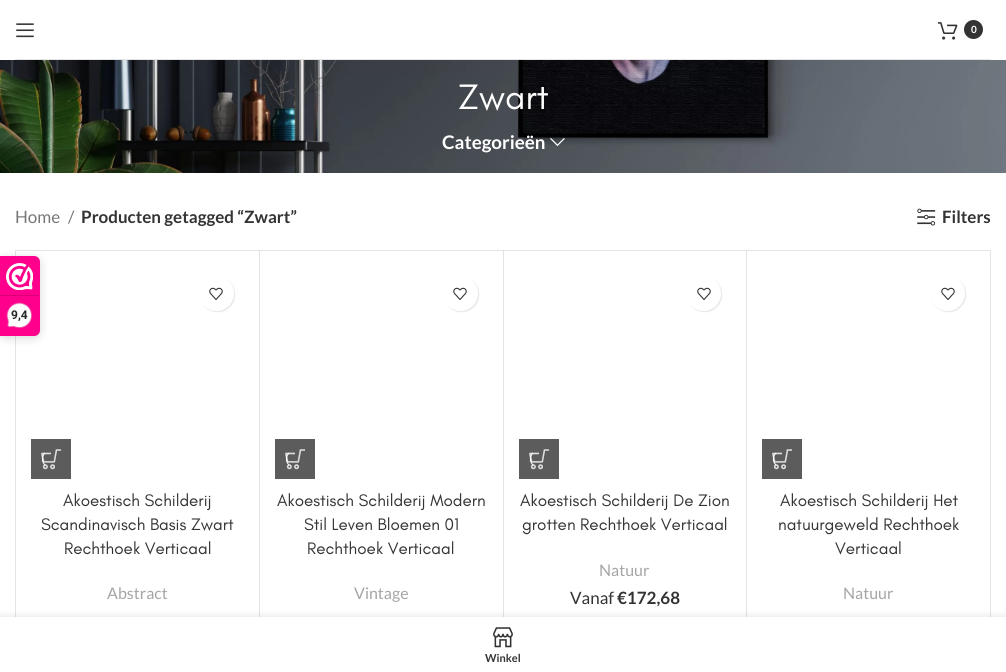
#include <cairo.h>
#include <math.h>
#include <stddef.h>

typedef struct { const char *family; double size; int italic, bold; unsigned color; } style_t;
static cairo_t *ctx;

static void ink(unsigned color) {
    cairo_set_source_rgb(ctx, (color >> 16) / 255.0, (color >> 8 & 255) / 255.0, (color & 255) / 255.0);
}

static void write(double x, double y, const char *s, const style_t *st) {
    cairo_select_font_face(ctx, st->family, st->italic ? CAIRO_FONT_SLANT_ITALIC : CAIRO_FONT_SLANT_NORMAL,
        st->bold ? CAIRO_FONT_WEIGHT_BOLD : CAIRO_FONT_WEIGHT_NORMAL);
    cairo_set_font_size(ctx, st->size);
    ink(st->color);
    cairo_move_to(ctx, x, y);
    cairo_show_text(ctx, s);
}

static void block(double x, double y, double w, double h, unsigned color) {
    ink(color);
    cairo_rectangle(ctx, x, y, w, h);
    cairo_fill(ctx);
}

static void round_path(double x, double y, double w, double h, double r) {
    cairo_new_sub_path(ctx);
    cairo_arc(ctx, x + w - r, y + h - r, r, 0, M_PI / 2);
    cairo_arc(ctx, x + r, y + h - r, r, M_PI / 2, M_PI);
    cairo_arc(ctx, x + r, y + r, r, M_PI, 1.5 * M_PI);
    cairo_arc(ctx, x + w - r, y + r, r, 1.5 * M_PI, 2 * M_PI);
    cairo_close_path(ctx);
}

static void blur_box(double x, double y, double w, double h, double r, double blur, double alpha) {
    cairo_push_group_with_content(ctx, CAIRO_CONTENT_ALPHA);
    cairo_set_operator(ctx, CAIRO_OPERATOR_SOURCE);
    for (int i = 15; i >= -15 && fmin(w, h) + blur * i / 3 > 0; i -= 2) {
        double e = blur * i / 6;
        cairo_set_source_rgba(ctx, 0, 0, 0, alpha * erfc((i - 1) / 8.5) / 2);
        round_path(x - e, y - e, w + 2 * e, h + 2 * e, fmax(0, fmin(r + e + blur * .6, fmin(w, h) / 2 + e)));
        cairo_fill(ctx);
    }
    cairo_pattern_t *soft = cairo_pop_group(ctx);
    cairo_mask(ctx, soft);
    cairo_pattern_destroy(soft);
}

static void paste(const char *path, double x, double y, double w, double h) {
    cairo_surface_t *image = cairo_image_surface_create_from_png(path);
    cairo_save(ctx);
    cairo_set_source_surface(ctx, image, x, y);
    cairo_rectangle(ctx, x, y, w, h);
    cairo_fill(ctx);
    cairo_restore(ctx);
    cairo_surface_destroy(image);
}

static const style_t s1 = {"Lato", 10, 0, 1, 0xffffff};
static const style_t s2 = {"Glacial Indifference", 36, 0, 0, 0xffffff};
static const style_t s3 = {"Lato", 18.75, 0, 1, 0xffffff};
static const style_t s4 = {"Lato", 17, 0, 0, 0x777777};
static const style_t s5 = {"Lato", 17, 0, 1, 0x333333};
static const style_t s6 = {"Glacial Indifference", 17, 0, 0, 0x333333};
static const style_t s7 = {"Lato", 16, 0, 0, 0xa5a5a5};
static const style_t s8 = {"Lato", 17, 0, 0, 0x333333};
static const style_t s9 = {"Roboto", 12, 0, 1, 0x272626};
static const style_t s10 = {"Lato", 11, 0, 1, 0x333333};

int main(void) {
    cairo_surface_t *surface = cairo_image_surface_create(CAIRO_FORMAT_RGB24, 1006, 672);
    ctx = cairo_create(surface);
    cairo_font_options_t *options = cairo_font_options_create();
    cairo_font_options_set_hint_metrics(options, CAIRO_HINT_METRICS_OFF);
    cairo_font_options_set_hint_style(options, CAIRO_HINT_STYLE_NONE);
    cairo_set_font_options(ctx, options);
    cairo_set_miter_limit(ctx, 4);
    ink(0xffffff);
    cairo_paint(ctx);
    block(15, 59, 976, 1, 0xe6e6e6);
    paste("pic1.png", 16, 23, 18, 15);
    paste("pic2.png", 938, 22, 20, 18);
    ink(0x333333);
    cairo_arc(ctx, 973.5, 29.5, 9.5, 0, 2 * M_PI);
    cairo_fill(ctx);
    write(971, 33, "0", &s1);
    paste("pic3.png", 0, 60, 1006, 113);
    write(458, 109, "Zwart", &s2);
    write(442, 149, "Categorieën", &s3);
    paste("pic4.png", 550, 138, 15, 9);
    write(15, 223, "Home", &s4);
    write(68, 223, "/", &s4);
    write(81, 223, "Producten getagged “Zwart”", &s5);
    paste("pic5.png", 917, 208, 19, 18);
    write(942, 223, "Filters", &s5);
    block(15, 250, 1, 367, 0xe4e4e4);
    cairo_new_path(ctx);
    cairo_move_to(ctx, 16, 250);
    cairo_line_to(ctx, 260, 250);
    cairo_line_to(ctx, 259, 251);
    cairo_line_to(ctx, 16, 251);
    cairo_close_path(ctx);
    cairo_fill(ctx);
    cairo_set_source_rgba(ctx, 0, 0, 0, 0.11);
    cairo_new_path(ctx);
    cairo_move_to(ctx, 260, 250);
    cairo_line_to(ctx, 260, 649);
    cairo_line_to(ctx, 259, 648);
    cairo_line_to(ctx, 259, 251);
    cairo_close_path(ctx);
    cairo_fill(ctx);
    ink(0x000000);
    blur_box(200, 277, 35, 35, 17.5, 0.5, 0.1);
    ink(0xffffff);
    cairo_arc(ctx, 216.5, 293.5, 17.5, 0, 2 * M_PI);
    cairo_fill(ctx);
    paste("pic6.png", 209, 287, 14, 13);
    block(31, 439, 40, 40, 0x5c5c5c);
    paste("pic7.png", 41, 449, 20, 21);
    cairo_new_path(ctx);
    cairo_move_to(ctx, 45, 465);
    cairo_curve_to(ctx, 41.5, 461.5, 41.5, 456.5, 45, 453);
    ink(0xffffff);
    cairo_set_line_width(ctx, 1);
    cairo_stroke(ctx);
    write(63, 506, "Akoestisch Schilderij", &s6);
    write(41, 530, "Scandinavisch Basis Zwart", &s6);
    write(64, 554, "Rechthoek Verticaal", &s6);
    write(107, 599, "Abstract", &s7);
    ink(0xe4e4e4);
    cairo_new_path(ctx);
    cairo_move_to(ctx, 260, 250);
    cairo_line_to(ctx, 504, 250);
    cairo_line_to(ctx, 503, 251);
    cairo_line_to(ctx, 260, 251);
    cairo_close_path(ctx);
    cairo_fill(ctx);
    cairo_set_source_rgba(ctx, 0, 0, 0, 0.11);
    cairo_new_path(ctx);
    cairo_move_to(ctx, 504, 250);
    cairo_line_to(ctx, 504, 649);
    cairo_line_to(ctx, 503, 648);
    cairo_line_to(ctx, 503, 251);
    cairo_close_path(ctx);
    cairo_fill(ctx);
    ink(0x000000);
    blur_box(444, 277, 35, 35, 17.5, 0.5, 0.1);
    ink(0xffffff);
    cairo_arc(ctx, 460.5, 293.5, 17.5, 0, 2 * M_PI);
    cairo_fill(ctx);
    paste("pic6.png", 453, 287, 14, 13);
    block(275, 439, 40, 40, 0x5c5c5c);
    paste("pic7.png", 285, 449, 20, 21);
    cairo_new_path(ctx);
    cairo_move_to(ctx, 289, 465);
    cairo_curve_to(ctx, 285.5, 461.5, 285.5, 456.5, 289, 453);
    ink(0xffffff);
    cairo_stroke(ctx);
    write(277, 506, "Akoestisch Schilderij Modern", &s6);
    write(304, 530, "Stil Leven Bloemen 01", &s6);
    write(307, 554, "Rechthoek Verticaal", &s6);
    write(354, 599, "Vintage", &s7);
    ink(0xe4e4e4);
    cairo_new_path(ctx);
    cairo_move_to(ctx, 504, 250);
    cairo_line_to(ctx, 747, 250);
    cairo_line_to(ctx, 746, 251);
    cairo_line_to(ctx, 504, 251);
    cairo_close_path(ctx);
    cairo_fill(ctx);
    cairo_set_source_rgba(ctx, 0, 0, 0, 0.11);
    cairo_new_path(ctx);
    cairo_move_to(ctx, 747, 250);
    cairo_line_to(ctx, 747, 649);
    cairo_line_to(ctx, 746, 648);
    cairo_line_to(ctx, 746, 251);
    cairo_close_path(ctx);
    cairo_fill(ctx);
    ink(0x000000);
    blur_box(687, 277, 35, 35, 17.5, 0.5, 0.1);
    ink(0xffffff);
    cairo_arc(ctx, 703.5, 293.5, 17.5, 0, 2 * M_PI);
    cairo_fill(ctx);
    paste("pic6.png", 697, 287, 14, 13);
    block(519, 439, 40, 40, 0x5c5c5c);
    paste("pic7.png", 529, 449, 20, 21);
    cairo_new_path(ctx);
    cairo_move_to(ctx, 533, 465);
    cairo_curve_to(ctx, 529.5, 461.5, 529.5, 456.5, 533, 453);
    ink(0xffffff);
    cairo_stroke(ctx);
    write(520, 506, "Akoestisch Schilderij De Zion", &s6);
    write(522, 530, "grotten Rechthoek Verticaal", &s6);
    write(599, 576, "Natuur", &s7);
    write(570, 604, "Vanaf", &s8);
    write(617, 604, "€172,68", &s5);
    ink(0xe4e4e4);
    cairo_new_path(ctx);
    cairo_move_to(ctx, 747, 250);
    cairo_line_to(ctx, 991, 250);
    cairo_line_to(ctx, 990, 251);
    cairo_line_to(ctx, 747, 251);
    cairo_close_path(ctx);
    cairo_fill(ctx);
    cairo_set_source_rgba(ctx, 0, 0, 0, 0.11);
    cairo_new_path(ctx);
    cairo_move_to(ctx, 991, 250);
    cairo_line_to(ctx, 991, 649);
    cairo_line_to(ctx, 990, 648);
    cairo_line_to(ctx, 990, 251);
    cairo_close_path(ctx);
    cairo_fill(ctx);
    ink(0x000000);
    blur_box(931, 277, 35, 35, 17.5, 0.5, 0.1);
    ink(0xffffff);
    cairo_arc(ctx, 947.5, 293.5, 17.5, 0, 2 * M_PI);
    cairo_fill(ctx);
    paste("pic6.png", 941, 287, 14, 13);
    block(762, 439, 40, 40, 0x5c5c5c);
    paste("pic7.png", 772, 449, 20, 21);
    cairo_new_path(ctx);
    cairo_move_to(ctx, 776, 465);
    cairo_curve_to(ctx, 772.5, 461.5, 772.5, 456.5, 776, 453);
    ink(0xffffff);
    cairo_stroke(ctx);
    write(780, 506, "Akoestisch Schilderij Het", &s6);
    write(778, 530, "natuurgeweld Rechthoek", &s6);
    write(835, 554, "Verticaal", &s6);
    write(843, 599, "Natuur", &s7);
    ink(0x000000);
    blur_box(0, 258, 40, 80, 6, 5, 0.15);
    ink(0xfe008c);
    cairo_new_path(ctx);
    cairo_move_to(ctx, 0, 256);
    cairo_line_to(ctx, 34, 256);
    cairo_curve_to(ctx, 37.5, 256, 40, 258.5, 40, 262);
    cairo_line_to(ctx, 40, 330);
    cairo_curve_to(ctx, 40, 333.5, 37.5, 336, 34, 336);
    cairo_line_to(ctx, 0, 336);
    cairo_close_path(ctx);
    cairo_fill(ctx);
    paste("pic8.png", 6, 263, 27, 27);
    block(0, 295, 39, 1, 0xd80077);
    paste("pic9.png", 6, 302, 26, 26);
    write(11, 319, "9,4", &s9);
    ink(0x000000);
    blur_box(0, 617, 1006, 55, 0, 4.5, 0.12);
    block(0, 617, 1006, 55, 0xffffff);
    paste("pic10.png", 493, 627, 20, 21);
    write(485, 662, "Winkel", &s10);
    cairo_surface_write_to_png(surface, "screenshot.png");
    cairo_font_options_destroy(options);
    cairo_destroy(ctx);
    cairo_surface_destroy(surface);
    return 0;
}
